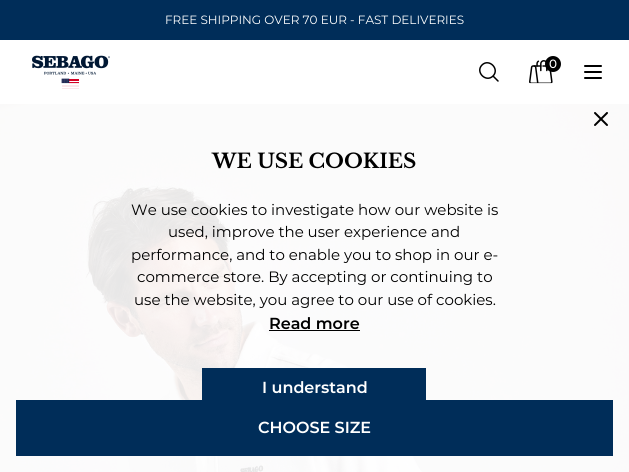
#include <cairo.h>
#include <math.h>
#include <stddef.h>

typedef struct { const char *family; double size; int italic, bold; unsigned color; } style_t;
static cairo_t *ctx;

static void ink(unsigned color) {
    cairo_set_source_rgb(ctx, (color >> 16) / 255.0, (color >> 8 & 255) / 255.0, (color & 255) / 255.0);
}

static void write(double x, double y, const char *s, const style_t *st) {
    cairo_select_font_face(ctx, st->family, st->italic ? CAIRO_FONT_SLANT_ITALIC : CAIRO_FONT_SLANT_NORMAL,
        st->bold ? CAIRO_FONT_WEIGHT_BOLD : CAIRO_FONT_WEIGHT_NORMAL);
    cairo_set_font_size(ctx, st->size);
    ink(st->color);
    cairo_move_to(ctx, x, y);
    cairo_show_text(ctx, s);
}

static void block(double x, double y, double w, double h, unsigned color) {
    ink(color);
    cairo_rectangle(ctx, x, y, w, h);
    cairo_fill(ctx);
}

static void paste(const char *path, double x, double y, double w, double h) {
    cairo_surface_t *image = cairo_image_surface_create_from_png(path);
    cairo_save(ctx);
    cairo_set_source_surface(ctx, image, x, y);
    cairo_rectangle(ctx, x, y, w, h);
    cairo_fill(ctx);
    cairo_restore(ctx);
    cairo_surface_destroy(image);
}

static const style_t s1 = {"Montserrat", 12, 0, 0, 0xffffff};
static const style_t s2 = {"Montserrat Medium", 12, 0, 0, 0xffffff};
static const style_t s3 = {"Libre Baskerville", 20, 0, 1, 0x000000};
static const style_t s4 = {"Montserrat", 15, 0, 0, 0x000000};
static const style_t s5 = {"Montserrat SemiBold", 16, 0, 0, 0x000000};
static const style_t s6 = {"Montserrat SemiBold", 16, 0, 0, 0xffffff};

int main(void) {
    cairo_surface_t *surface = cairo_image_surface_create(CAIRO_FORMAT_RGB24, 629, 472);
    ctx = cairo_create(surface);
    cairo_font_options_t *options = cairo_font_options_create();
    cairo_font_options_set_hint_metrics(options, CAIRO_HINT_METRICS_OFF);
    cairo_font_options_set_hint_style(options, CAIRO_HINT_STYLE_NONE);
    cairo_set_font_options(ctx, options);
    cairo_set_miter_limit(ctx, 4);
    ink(0xffffff);
    cairo_paint(ctx);
    block(0, 0, 629, 40, 0x002d59);
    write(165, 24, "FREE SHIPPING OVER 70 EUR - FAST DELIVERIES", &s1);
    paste("pic1.png", 32, 55, 78, 34);
    cairo_new_path(ctx);
    cairo_move_to(ctx, 498, 81);
    cairo_line_to(ctx, 493, 76);
    cairo_move_to(ctx, 493, 76);
    cairo_curve_to(ctx, 500, 69, 489, 58, 482, 65);
    cairo_curve_to(ctx, 475, 72, 486, 83, 493, 76);
    cairo_close_path(ctx);
    ink(0x000000);
    cairo_set_line_width(ctx, 1.5);
    cairo_set_line_cap(ctx, CAIRO_LINE_CAP_ROUND);
    cairo_set_line_join(ctx, CAIRO_LINE_JOIN_ROUND);
    cairo_stroke(ctx);
    paste("pic2.png", 529, 60, 24, 24);
    cairo_arc(ctx, 553, 64, 8, 0, 2 * M_PI);
    cairo_fill(ctx);
    write(549, 68, "0", &s2);
    cairo_new_path(ctx);
    cairo_move_to(ctx, 585, 66);
    cairo_line_to(ctx, 601, 66);
    cairo_move_to(ctx, 585, 72);
    cairo_line_to(ctx, 601, 72);
    cairo_move_to(ctx, 585, 78);
    cairo_line_to(ctx, 601, 78);
    ink(0x000000);
    cairo_set_line_width(ctx, 2);
    cairo_stroke(ctx);
    paste("pic3.png", 0, 104, 629, 368);
    cairo_set_source_rgba(ctx, 1, 1, 1, 0.9);
    cairo_rectangle(ctx, 0, 83, 629, 389);
    cairo_fill(ctx);
    cairo_new_path(ctx);
    cairo_move_to(ctx, 595, 125);
    cairo_line_to(ctx, 607, 113);
    cairo_move_to(ctx, 595, 113);
    cairo_line_to(ctx, 607, 125);
    ink(0x000000);
    cairo_stroke(ctx);
    write(212, 168, "WE USE COOKIES", &s3);
    write(131, 215, "We use cookies to investigate how our website is", &s4);
    write(168, 237, "used, improve the user experience and", &s4);
    write(131, 260, "performance, and to enable you to shop in our e-", &s4);
    write(137, 282, "commerce store. By accepting or continuing to", &s4);
    write(134, 305, "use the website, you agree to our use of cookies.", &s4);
    write(269, 329, "Read more", &s5);
    block(269, 330, 91, 1, 0x000000);
    block(202, 368, 224, 32, 0x002d59);
    write(262, 393, "I understand", &s6);
    block(16, 400, 597, 56, 0x002d59);
    write(258, 433, "CHOOSE SIZE", &s6);
    cairo_surface_write_to_png(surface, "screenshot.png");
    cairo_font_options_destroy(options);
    cairo_destroy(ctx);
    cairo_surface_destroy(surface);
    return 0;
}
